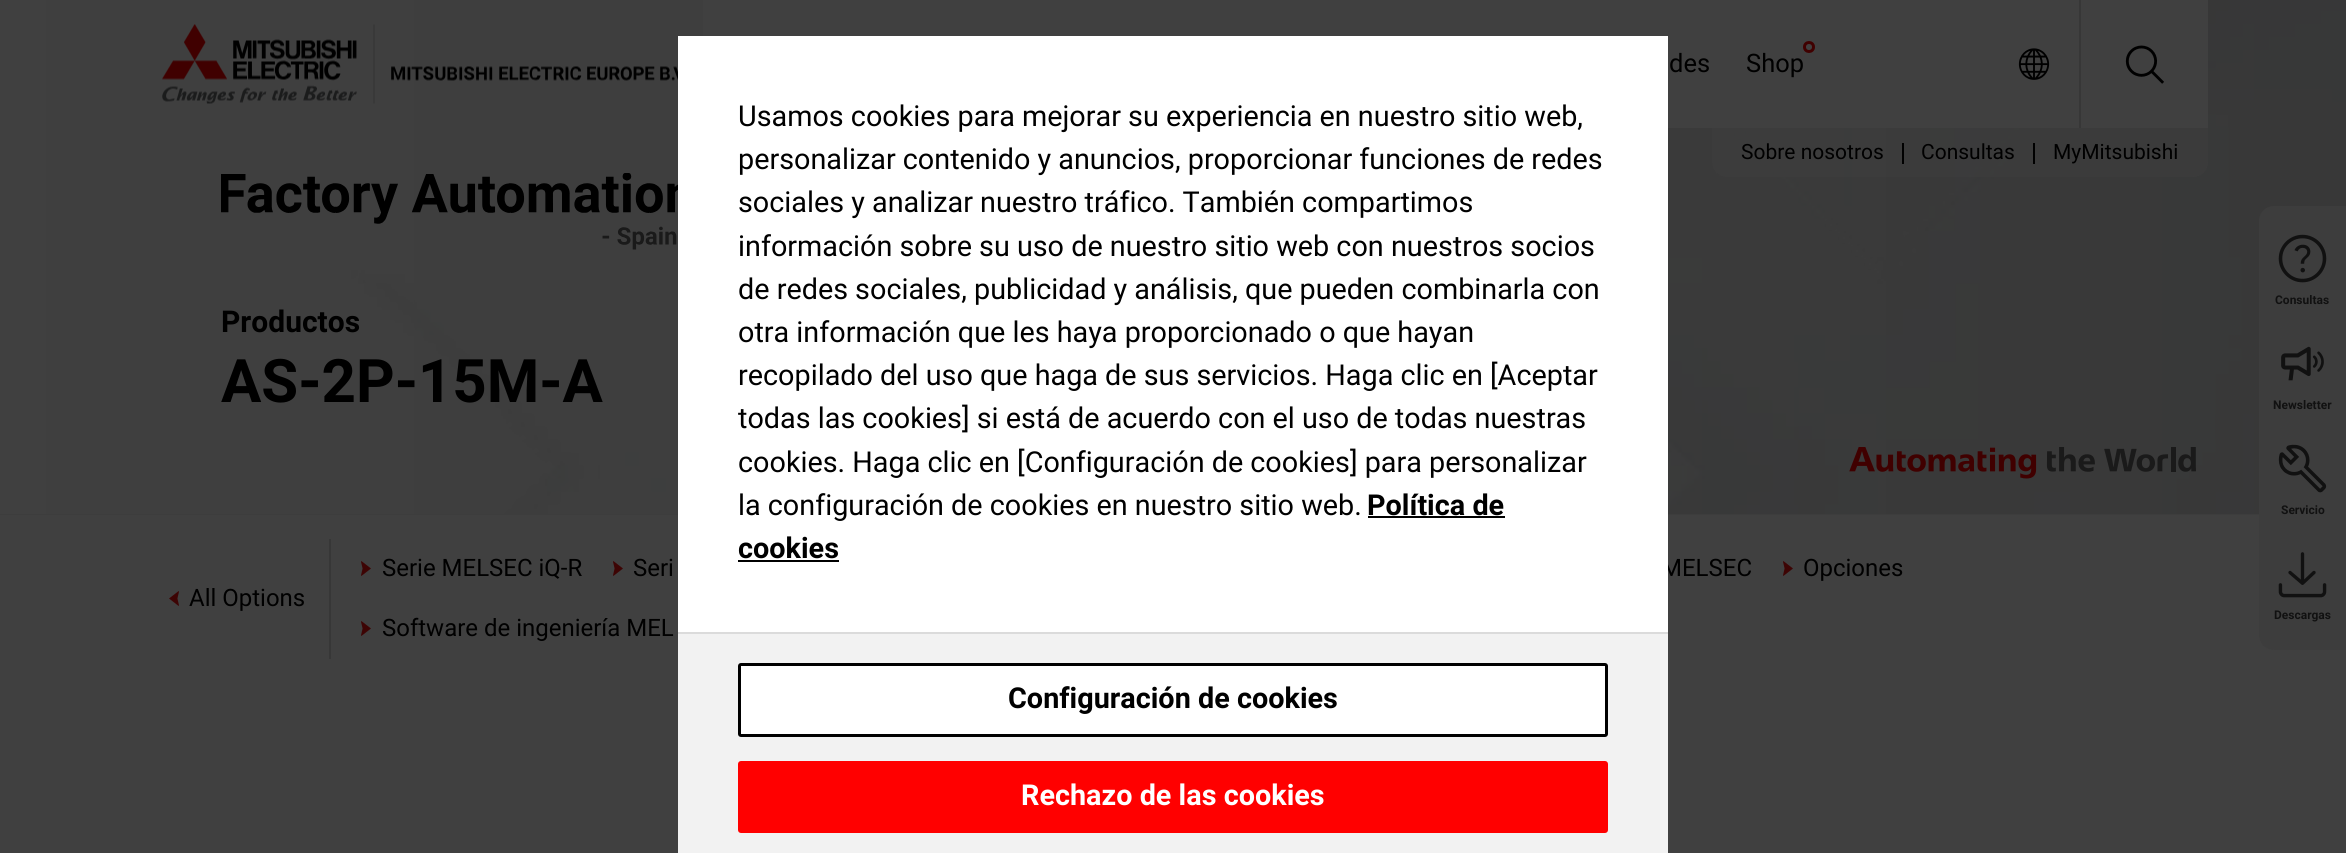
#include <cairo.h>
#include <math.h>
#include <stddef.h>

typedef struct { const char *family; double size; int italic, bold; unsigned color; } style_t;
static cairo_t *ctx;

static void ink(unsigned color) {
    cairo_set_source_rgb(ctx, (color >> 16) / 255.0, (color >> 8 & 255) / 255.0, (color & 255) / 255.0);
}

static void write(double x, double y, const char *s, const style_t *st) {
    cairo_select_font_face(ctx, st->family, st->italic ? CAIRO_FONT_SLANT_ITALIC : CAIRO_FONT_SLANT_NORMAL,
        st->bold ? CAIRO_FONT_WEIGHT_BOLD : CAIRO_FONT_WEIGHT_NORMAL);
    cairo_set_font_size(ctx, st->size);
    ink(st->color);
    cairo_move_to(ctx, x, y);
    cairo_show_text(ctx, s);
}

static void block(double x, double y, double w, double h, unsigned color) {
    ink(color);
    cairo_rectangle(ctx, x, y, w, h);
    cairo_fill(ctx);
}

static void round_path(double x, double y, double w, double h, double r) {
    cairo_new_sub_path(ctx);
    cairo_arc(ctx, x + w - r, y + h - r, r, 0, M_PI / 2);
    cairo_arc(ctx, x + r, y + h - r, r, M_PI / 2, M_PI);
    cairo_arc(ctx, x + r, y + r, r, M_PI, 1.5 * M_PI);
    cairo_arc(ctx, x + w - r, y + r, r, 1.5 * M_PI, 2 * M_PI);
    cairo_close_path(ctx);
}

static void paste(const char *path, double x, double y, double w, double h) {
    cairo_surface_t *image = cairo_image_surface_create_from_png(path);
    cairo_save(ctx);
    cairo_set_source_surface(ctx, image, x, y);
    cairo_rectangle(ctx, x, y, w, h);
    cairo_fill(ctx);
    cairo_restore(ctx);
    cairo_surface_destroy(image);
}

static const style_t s1 = {"Roboto", 25.5, 0, 0, 0x000000};
static const style_t s2 = {"Roboto", 21, 0, 0, 0x000000};
static const style_t s3 = {"Roboto", 30, 0, 1, 0x000000};
static const style_t s4 = {"Roboto", 60, 0, 1, 0x000000};
static const style_t s5 = {"Roboto", 12, 0, 1, 0x111111};
static const style_t s6 = {"Roboto", 24, 0, 0, 0x000000};
static const style_t s7 = {"Roboto", 28.8, 0, 0, 0x000000};
static const style_t s8 = {"Roboto", 28.8, 0, 1, 0x000000};
static const style_t s9 = {"Roboto", 28.8, 0, 1, 0xffffff};

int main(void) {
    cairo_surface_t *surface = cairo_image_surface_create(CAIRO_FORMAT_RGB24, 2346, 853);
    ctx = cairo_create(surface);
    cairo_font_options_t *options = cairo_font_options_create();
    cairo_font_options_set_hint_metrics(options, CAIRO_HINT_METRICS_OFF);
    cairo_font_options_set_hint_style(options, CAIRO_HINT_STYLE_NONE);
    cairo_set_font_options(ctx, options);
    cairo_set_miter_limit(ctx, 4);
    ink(0x404040);
    cairo_paint(ctx);
    paste("pic4.png", 0, 0, 2346, 514);
    block(703, 0, 1505, 128, 0x404040);
    paste("pic1.png", 162, 24, 516, 80);
    write(1669, 72, "des", &s1);
    cairo_new_path(ctx);
    cairo_arc(ctx, 1809, 47, 4.5, 0, 2 * M_PI);
    ink(0x400000);
    cairo_set_line_width(ctx, 3);
    cairo_stroke(ctx);
    write(1746, 72, "Shop", &s1);
    paste("pic2.png", 2018, 48, 32, 32);
    block(2079, 0, 2, 128, 0x373737);
    paste("pic3.png", 2125, 45, 39, 39);
    cairo_set_source_rgba(ctx, 0.239, 0.239, 0.239, 0.8);
    cairo_new_path(ctx);
    cairo_move_to(ctx, 1712, 128);
    cairo_line_to(ctx, 2208, 128);
    cairo_line_to(ctx, 2208, 162);
    cairo_curve_to(ctx, 2208, 170.5, 2201.5, 177, 2193, 177);
    cairo_line_to(ctx, 1727, 177);
    cairo_curve_to(ctx, 1718.5, 177, 1712, 170.5, 1712, 162);
    cairo_close_path(ctx);
    cairo_fill(ctx);
    write(1741, 159, "Sobre nosotros", &s2);
    block(1902, 143, 2, 21, 0x000000);
    write(1921, 159, "Consultas", &s2);
    block(2033, 143, 2, 21, 0x000000);
    write(2053, 159, "MyMitsubishi", &s2);
    block(0, 514, 2346, 1, 0x3d3d3d);
    paste("pic5.png", 221, 173, 457, 77);
    write(221, 332, "Productos", &s3);
    write(221, 402, "AS-2P-15M-A", &s4);
    paste("pic6.png", 1849, 447, 347, 32);
    cairo_set_source_rgba(ctx, 0.239, 0.239, 0.239, 0.95);
    cairo_new_path(ctx);
    cairo_move_to(ctx, 2274, 206);
    cairo_line_to(ctx, 2346, 206);
    cairo_line_to(ctx, 2346, 650);
    cairo_line_to(ctx, 2274, 650);
    cairo_curve_to(ctx, 2265.5, 650, 2259, 643.5, 2259, 635);
    cairo_line_to(ctx, 2259, 221);
    cairo_curve_to(ctx, 2259, 212.5, 2265.5, 206, 2274, 206);
    cairo_close_path(ctx);
    cairo_fill(ctx);
    paste("pic7.png", 2278, 234, 49, 49);
    write(2275, 304, "Consultas", &s5);
    paste("pic8.png", 2281, 346, 43, 35);
    write(2273, 409, "Newsletter", &s5);
    paste("pic9.png", 2278, 444, 49, 49);
    write(2281, 514, "Servicio", &s5);
    paste("pic10.png", 2278, 552, 49, 46);
    write(2274, 619, "Descargas", &s5);
    block(329, 539, 2, 120, 0x373737);
    paste("pic11.png", 169, 591, 10, 15);
    write(189, 606, "All Options", &s6);
    paste("pic12.png", 361, 561, 10, 15);
    write(382, 576, "Serie MELSEC iQ-R", &s6);
    paste("pic12.png", 613, 561, 10, 15);
    write(633, 576, "Seri", &s6);
    write(1661, 576, "MELSEC", &s6);
    paste("pic12.png", 1783, 561, 10, 15);
    write(1803, 576, "Opciones", &s6);
    paste("pic12.png", 361, 621, 10, 15);
    write(382, 636, "Software de ingeniería MEL", &s6);
    block(678, 36, 990, 596, 0xffffff);
    write(738, 126, "Usamos cookies para mejorar su experiencia en nuestro sitio web,", &s7);
    write(738, 169, "personalizar contenido y anuncios, proporcionar funciones de redes", &s7);
    write(738, 212, "sociales y analizar nuestro tráfico. También compartimos", &s7);
    write(738, 256, "información sobre su uso de nuestro sitio web con nuestros socios", &s7);
    write(738, 299, "de redes sociales, publicidad y análisis, que pueden combinarla con", &s7);
    write(738, 342, "otra información que les haya proporcionado o que hayan", &s7);
    write(738, 385, "recopilado del uso que haga de sus servicios. Haga clic en [Aceptar", &s7);
    write(738, 428, "todas las cookies] si está de acuerdo con el uso de todas nuestras", &s7);
    write(738, 472, "cookies. Haga clic en [Configuración de cookies] para personalizar", &s7);
    write(738, 515, "la configuración de cookies en nuestro sitio web.", &s7);
    write(1367, 515, "Política de", &s8);
    block(1368, 516, 137, 2, 0x000000);
    write(738, 558, "cookies", &s8);
    block(738, 560, 101, 2, 0x000000);
    block(678, 634, 990, 219, 0xf2f2f2);
    block(678, 632, 990, 2, 0xdbdbdb);
    ink(0xffffff);
    round_path(739.5, 664.5, 867, 71, 1.5);
    cairo_fill_preserve(ctx);
    ink(0x000000);
    cairo_stroke(ctx);
    write(1008, 708, "Configuración de cookies", &s8);
    ink(0xff0000);
    round_path(739.5, 762.5, 867, 69, 1.5);
    cairo_fill_preserve(ctx);
    cairo_stroke(ctx);
    write(1021, 805, "Rechazo de las cookies", &s9);
    cairo_surface_write_to_png(surface, "screenshot.png");
    cairo_font_options_destroy(options);
    cairo_destroy(ctx);
    cairo_surface_destroy(surface);
    return 0;
}
